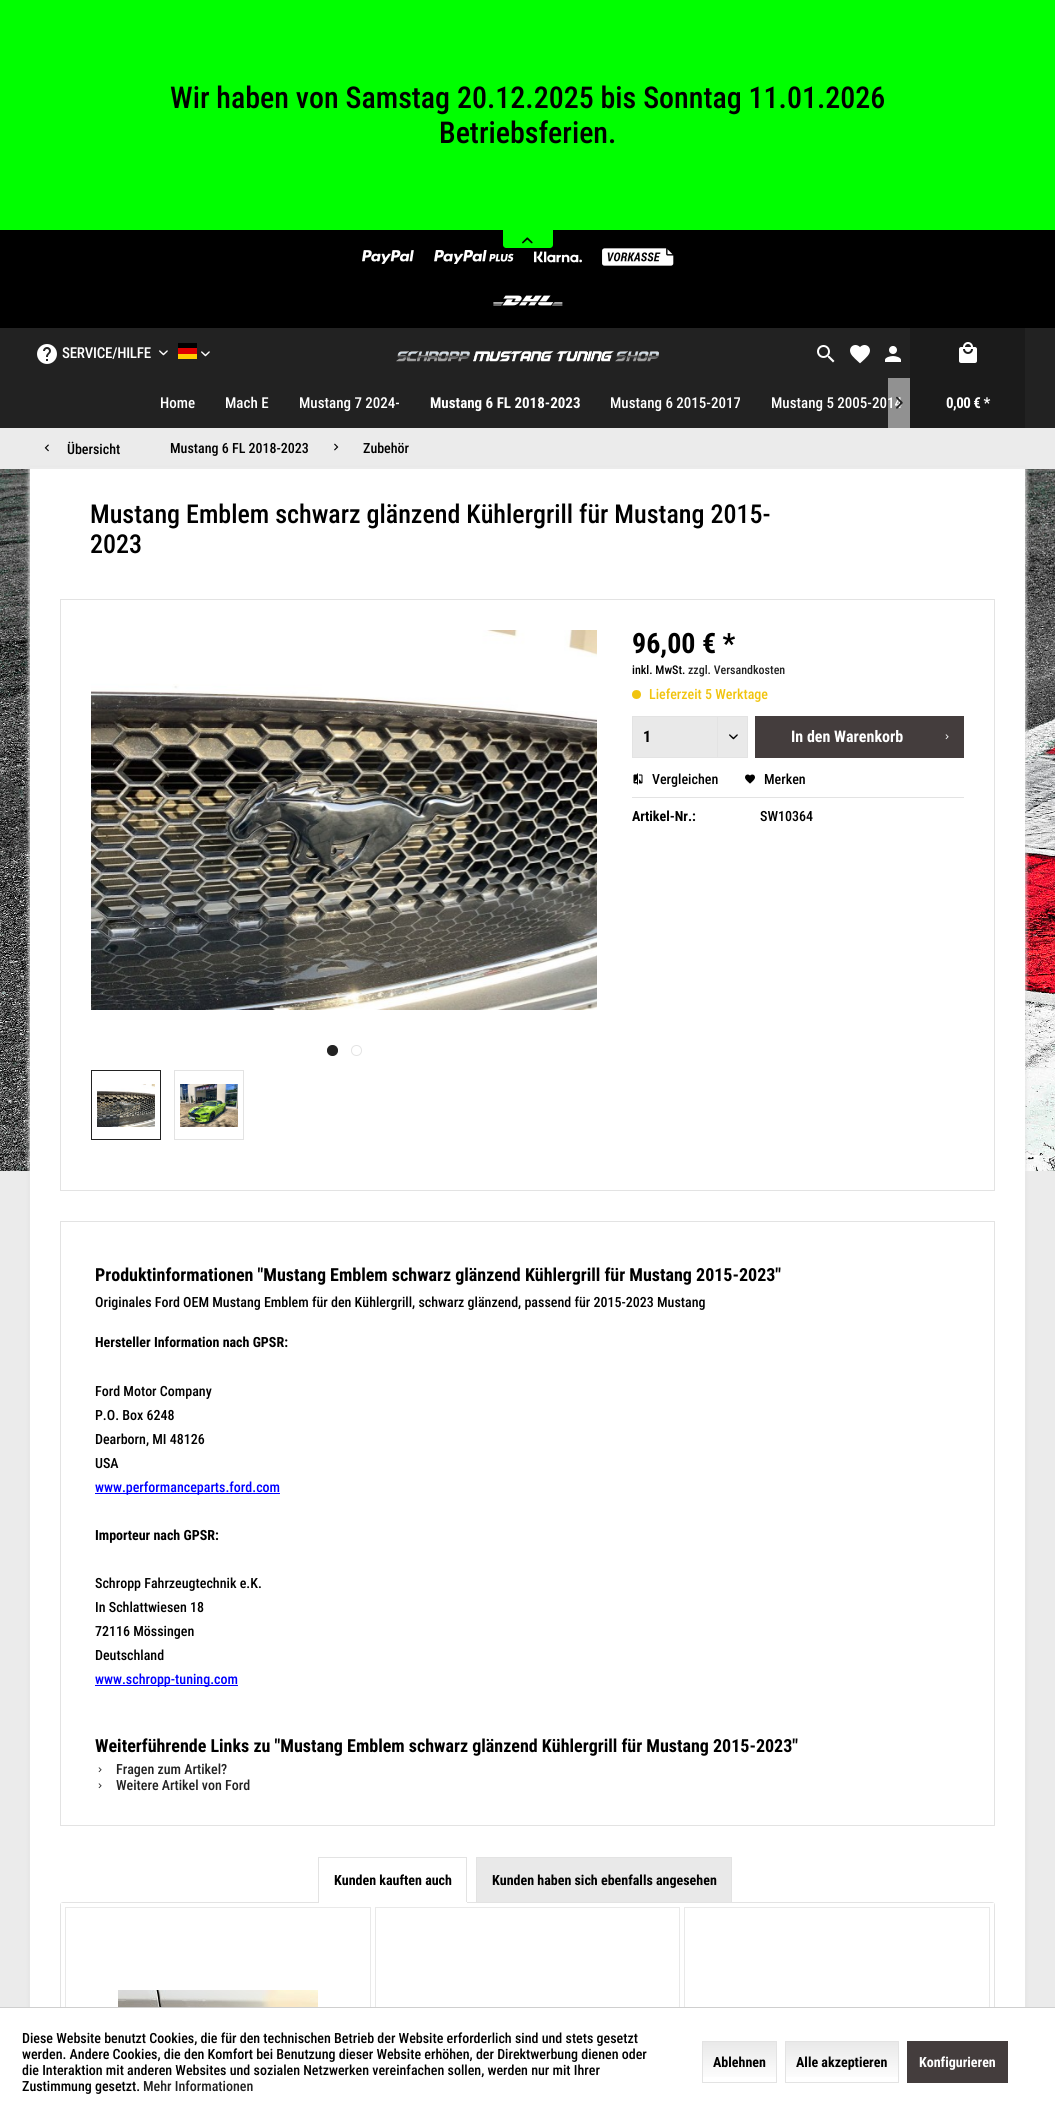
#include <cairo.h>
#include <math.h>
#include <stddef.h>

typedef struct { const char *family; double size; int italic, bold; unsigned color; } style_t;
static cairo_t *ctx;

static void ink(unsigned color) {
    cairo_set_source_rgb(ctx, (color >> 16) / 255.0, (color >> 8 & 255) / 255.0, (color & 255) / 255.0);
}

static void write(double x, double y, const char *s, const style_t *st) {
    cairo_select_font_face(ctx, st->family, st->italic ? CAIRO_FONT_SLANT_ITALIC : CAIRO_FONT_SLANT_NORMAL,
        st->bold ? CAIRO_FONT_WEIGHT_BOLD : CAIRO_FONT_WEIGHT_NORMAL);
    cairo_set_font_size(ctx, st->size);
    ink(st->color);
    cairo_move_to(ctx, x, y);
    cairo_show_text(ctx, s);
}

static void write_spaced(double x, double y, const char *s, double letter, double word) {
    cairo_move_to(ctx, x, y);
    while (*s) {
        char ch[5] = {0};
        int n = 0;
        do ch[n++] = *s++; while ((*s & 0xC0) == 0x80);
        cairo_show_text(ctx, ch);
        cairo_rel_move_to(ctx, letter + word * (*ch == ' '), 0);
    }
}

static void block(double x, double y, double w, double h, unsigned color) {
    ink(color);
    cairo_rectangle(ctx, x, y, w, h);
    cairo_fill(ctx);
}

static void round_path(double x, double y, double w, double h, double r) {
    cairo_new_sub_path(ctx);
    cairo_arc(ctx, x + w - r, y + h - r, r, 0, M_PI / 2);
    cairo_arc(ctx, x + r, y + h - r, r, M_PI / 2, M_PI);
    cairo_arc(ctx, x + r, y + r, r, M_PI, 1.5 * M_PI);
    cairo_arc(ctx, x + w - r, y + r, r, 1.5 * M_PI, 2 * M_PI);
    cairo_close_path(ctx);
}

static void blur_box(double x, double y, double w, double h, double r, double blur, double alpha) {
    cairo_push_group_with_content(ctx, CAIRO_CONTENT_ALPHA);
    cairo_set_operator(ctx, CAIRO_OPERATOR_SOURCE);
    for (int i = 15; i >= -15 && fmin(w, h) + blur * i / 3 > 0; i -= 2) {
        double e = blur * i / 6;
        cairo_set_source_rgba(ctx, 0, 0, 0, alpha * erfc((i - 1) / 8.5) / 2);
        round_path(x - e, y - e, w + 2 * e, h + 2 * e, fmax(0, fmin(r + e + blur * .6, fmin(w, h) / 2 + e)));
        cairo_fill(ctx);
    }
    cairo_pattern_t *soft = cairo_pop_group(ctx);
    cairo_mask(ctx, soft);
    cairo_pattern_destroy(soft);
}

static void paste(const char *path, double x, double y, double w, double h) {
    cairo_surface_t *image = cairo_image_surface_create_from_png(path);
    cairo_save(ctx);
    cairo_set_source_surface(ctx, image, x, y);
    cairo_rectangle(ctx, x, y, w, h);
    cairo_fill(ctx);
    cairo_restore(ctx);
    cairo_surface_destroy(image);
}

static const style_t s1 = {"Roboto Condensed Medium", 30, 0, 0, 0x000000};
static const style_t s2 = {"Roboto Condensed Medium", 15, 0, 0, 0xffffff};
static const style_t s3 = {"Roboto Condensed", 15, 0, 1, 0xffffff};
static const style_t s4 = {"Roboto Condensed Medium", 14, 0, 0, 0x000000};
static const style_t s5 = {"Roboto Condensed Medium", 26, 0, 0, 0x000000};
static const style_t s6 = {"Roboto Condensed", 28, 0, 1, 0x000000};
static const style_t s7 = {"Roboto Condensed Medium", 12, 0, 0, 0x000000};
static const style_t s8 = {"Roboto Condensed Medium", 12, 0, 0, 0x222222};
static const style_t s9 = {"Roboto Condensed Medium", 14, 0, 0, 0xf1c40f};
static const style_t s10 = {"Roboto Condensed", 16, 0, 1, 0x000000};
static const style_t s11 = {"Roboto Condensed", 16, 0, 1, 0xffffff};
static const style_t s12 = {"Roboto Condensed", 14, 0, 1, 0x000000};
static const style_t s13 = {"Roboto Condensed", 18, 0, 1, 0x000000};
static const style_t s14 = {"Roboto Condensed Medium", 14, 0, 0, 0x0000ff};
static const style_t s15 = {"Roboto Condensed Medium", 14, 0, 0, 0x222222};
static const style_t s16 = {"Roboto Condensed", 14, 0, 1, 0xffffff};

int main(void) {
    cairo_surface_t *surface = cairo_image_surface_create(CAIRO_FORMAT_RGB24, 1055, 2116);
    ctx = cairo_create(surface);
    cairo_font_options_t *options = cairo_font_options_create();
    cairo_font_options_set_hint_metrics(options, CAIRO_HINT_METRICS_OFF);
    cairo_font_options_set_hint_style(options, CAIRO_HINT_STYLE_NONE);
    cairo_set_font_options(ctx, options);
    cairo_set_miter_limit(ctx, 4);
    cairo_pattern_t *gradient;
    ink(0xebebeb);
    cairo_paint(ctx);
    block(0, 0, 1055, 230, 0x00ff00);
    write(170, 108, "Wir haben von Samstag 20.12.2025 bis Sonntag 11.01.2026", &s1);
    write(439, 143, "Betriebsferien.", &s1);
    block(0, 230, 1055, 98, 0x000000);
    ink(0x00ff00);
    cairo_new_path(ctx);
    cairo_move_to(ctx, 503, 230);
    cairo_line_to(ctx, 553, 230);
    cairo_line_to(ctx, 553, 245);
    cairo_curve_to(ctx, 553, 246.5, 551.5, 248, 550, 248);
    cairo_line_to(ctx, 506, 248);
    cairo_curve_to(ctx, 504.5, 248, 503, 246.5, 503, 245);
    cairo_close_path(ctx);
    cairo_fill(ctx);
    paste("pic1.png", 522, 237, 11, 7);
    paste("pic2.png", 362, 250, 52, 14);
    paste("pic3.png", 434, 250, 80, 14);
    paste("pic4.png", 534, 251, 48, 12);
    paste("pic5.png", 602, 248, 72, 18);
    paste("pic6.png", 493, 295, 70, 11);
    block(0, 328, 1055, 100, 0x222222);
    paste("pic7.png", 37, 344, 20, 20);
    cairo_set_font_size(ctx, 15);
    ink(0xffffff);
    write_spaced(62, 358, "SERVICE/HILFE", -0.25, 0);
    paste("pic8.png", 159, 350, 9, 6);
    block(178, 343, 19, 5, 0x000000);
    block(178, 348, 19, 6, 0xdd0000);
    block(178, 354, 19, 5, 0xffce00);
    paste("pic8.png", 201, 351, 9, 6);
    paste("pic9.png", 817, 345, 18, 18);
    paste("pic10.png", 850, 345, 20, 19);
    paste("pic11.png", 885, 346, 16, 16);
    block(910, 328, 115, 100, 0x1b1b1b);
    paste("pic12.png", 959, 342, 18, 21);
    cairo_select_font_face(ctx, "Roboto Condensed", CAIRO_FONT_SLANT_NORMAL, CAIRO_FONT_WEIGHT_BOLD);
    ink(0xffffff);
    write_spaced(946, 408, "0,00 € *", -0.5, 0);
    paste("pic13.png", 396, 351, 263, 11);
    write(771, 408, "Mustang 5 2005-2014", &s2);
    cairo_set_source_rgba(ctx, 1, 1, 1, 0.5);
    cairo_rectangle(ctx, 888, 378, 22, 50);
    cairo_fill(ctx);
    paste("pic14.png", 896, 396, 7, 13);
    write(160, 408, "Home", &s2);
    write(225, 408, "Mach E", &s2);
    write(299, 408, "Mustang 7 2024-", &s2);
    write(430, 408, "Mustang 6 FL 2018-2023", &s3);
    write(610, 408, "Mustang 6 2015-2017", &s2);
    paste("pic17.png", 0, 469, 1055, 702);
    ink(0xe3e3e3);
    blur_box(29, 468, 997, 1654, 0, 2, 1);
    block(30, 467, 995, 2, 0xebebeb);
    paste("pic15.png", 44, 444, 5, 8);
    write(67, 454, "Übersicht", &s4);
    write(170, 453, "Mustang 6 FL 2018-2023", &s4);
    paste("pic16.png", 334, 443, 5, 8);
    write(363, 453, "Zubehör", &s4);
    block(30, 469, 995, 1538, 0xffffff);
    write(90, 523, "Mustang Emblem schwarz glänzend Kühlergrill für Mustang 2015-", &s5);
    write(90, 553, "2023", &s5);
    cairo_rectangle(ctx, 60.5, 599.5, 934, 591);
    ink(0xe3e3e3);
    cairo_set_line_width(ctx, 1);
    cairo_stroke(ctx);
    paste("pic18.png", 91, 630, 506, 380);
    ink(0x222222);
    cairo_arc(ctx, 332.5, 1050.5, 5, 0, 2 * M_PI);
    cairo_fill_preserve(ctx);
    cairo_stroke(ctx);
    cairo_arc(ctx, 356.5, 1050.5, 5, 0, 2 * M_PI);
    ink(0xe3e3e3);
    cairo_stroke(ctx);
    cairo_rectangle(ctx, 91.5, 1070.5, 69, 69);
    ink(0x222222);
    cairo_stroke(ctx);
    paste("pic19.png", 97, 1084, 58, 43);
    cairo_rectangle(ctx, 174.5, 1070.5, 69, 69);
    ink(0xe3e3e3);
    cairo_stroke(ctx);
    paste("pic20.png", 180, 1084, 58, 43);
    write(632, 653, "96,00 € *", &s6);
    write(632, 674, "inkl. MwSt.", &s7);
    write(688, 674, "zzgl. Versandkosten", &s8);
    ink(0xf1c40f);
    cairo_new_path(ctx);
    cairo_arc(ctx, 636.5, 694.5, 4.5, 0, 2 * M_PI);
    cairo_fill(ctx);
    write(649, 699, "Lieferzeit 5 Werktage", &s9);
    ink(0xe9e9e9);
    cairo_rectangle(ctx, 632.5, 716.5, 115, 41);
    cairo_fill_preserve(ctx);
    ink(0xe3e3e3);
    cairo_stroke(ctx);
    write(643, 742, "1", &s10);
    block(717, 717, 1, 40, 0xe3e3e3);
    paste("pic21.png", 729, 734, 9, 6);
    block(755, 716, 209, 42, 0x443d3d);
    write(791, 742, "In den Warenkorb", &s11);
    paste("pic22.png", 945, 734, 4, 6);
    block(632, 797, 332, 1, 0xe3e3e3);
    paste("pic23.png", 633, 773, 10, 12);
    write(652, 784, "Vergleichen", &s4);
    paste("pic24.png", 745, 774, 10, 10);
    write(764, 784, "Merken", &s4);
    write(632, 821, "Artikel-Nr.:", &s12);
    write(760, 821, "SW10364", &s4);
    cairo_rectangle(ctx, 60.5, 1221.5, 934, 604);
    ink(0xe3e3e3);
    cairo_stroke(ctx);
    write(95, 1281, "Produktinformationen \"Mustang Emblem schwarz glänzend Kühlergrill für Mustang 2015-2023\"", &s13);
    write(95, 1307, "Originales Ford OEM Mustang Emblem für den Kühlergrill, schwarz glänzend, passend für 2015-2023 Mustang", &s4);
    write(95, 1347, "Hersteller Information nach GPSR:", &s12);
    write(95, 1396, "Ford Motor Company", &s4);
    write(95, 1420, "P.O. Box 6248", &s4);
    write(95, 1444, "Dearborn, MI 48126", &s4);
    write(95, 1468, "USA", &s4);
    block(95, 1493, 185, 1, 0x0000ff);
    write(95, 1492, "www.performanceparts.ford.com", &s14);
    write(95, 1540, "Importeur nach GPSR:", &s12);
    write(95, 1588, "Schropp Fahrzeugtechnik e.K.", &s4);
    write(95, 1612, "In Schlattwiesen 18", &s4);
    write(95, 1636, "72116 Mössingen", &s4);
    write(95, 1660, "Deutschland", &s4);
    block(95, 1685, 143, 1, 0x0000ff);
    write(95, 1684, "www.schropp-tuning.com", &s14);
    write(95, 1752, "Weiterführende Links zu \"Mustang Emblem schwarz glänzend Kühlergrill für Mustang 2015-2023\"", &s13);
    paste("pic25.png", 98, 1767, 4, 6);
    write(116, 1774, "Fragen zum Artikel?", &s15);
    paste("pic25.png", 98, 1783, 4, 6);
    write(116, 1790, "Weitere Artikel von Ford", &s15);
    block(318, 1857, 149, 1, 0xe3e3e3);
    round_path(60.5, 1902.5, 934, 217, 2.5);
    cairo_stroke(ctx);
    block(466, 1857, 1, 46, 0xe3e3e3);
    block(318, 1902, 149, 1, 0xffffff);
    block(318, 1857, 1, 46, 0xe3e3e3);
    write(334, 1885, "Kunden kauften auch", &s12);
    ink(0xe9e9e9);
    cairo_rectangle(ctx, 476.5, 1857.5, 255, 45);
    cairo_fill_preserve(ctx);
    ink(0xe3e3e3);
    cairo_stroke(ctx);
    write(492, 1885, "Kunden haben sich ebenfalls angesehen", &s12);
    block(61, 1903, 933, 2, 0xffffff);
    cairo_rectangle(ctx, 65.5, 1907.5, 305, 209);
    ink(0xe9e9e9);
    cairo_stroke(ctx);
    paste("pic26.png", 118, 1990, 200, 17);
    cairo_rectangle(ctx, 375.5, 1907.5, 304, 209);
    cairo_stroke(ctx);
    cairo_rectangle(ctx, 684.5, 1907.5, 305, 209);
    cairo_stroke(ctx);
    block(0, 2008, 1055, 108, 0xffffff);
    block(0, 2007, 1055, 1, 0xcfcfcf);
    write(22, 2043, "Diese Website benutzt Cookies, die für den technischen Betrieb der Website erforderlich sind und stets gesetzt", &s4);
    write(22, 2059, "werden. Andere Cookies, die den Komfort bei Benutzung dieser Website erhöhen, der Direktwerbung dienen oder", &s4);
    write(22, 2075, "die Interaktion mit anderen Websites und sozialen Netzwerken vereinfachen sollen, werden nur mit Ihrer", &s4);
    write(22, 2091, "Zustimmung gesetzt.", &s4);
    write(143, 2091, "Mehr Informationen", &s15);
    gradient = cairo_pattern_create_linear(740, 2042, 740, 2082);
    cairo_pattern_add_color_stop_rgba(gradient, 0, 0.914, 0.914, 0.914, 1);
    cairo_pattern_add_color_stop_rgba(gradient, 1, 1, 1, 1, 1);
    cairo_set_source(ctx, gradient);
    cairo_pattern_destroy(gradient);
    cairo_rectangle(ctx, 703, 2042, 73, 35);
    cairo_fill(ctx);
    cairo_rectangle(ctx, 702.5, 2041.5, 74, 41);
    ink(0xe3e3e3);
    cairo_stroke(ctx);
    write(713, 2067, "Ablehnen", &s12);
    gradient = cairo_pattern_create_linear(842, 2042, 842, 2082);
    cairo_pattern_add_color_stop_rgba(gradient, 0, 0.914, 0.914, 0.914, 1);
    cairo_pattern_add_color_stop_rgba(gradient, 1, 1, 1, 1, 1);
    cairo_set_source(ctx, gradient);
    cairo_pattern_destroy(gradient);
    cairo_rectangle(ctx, 786, 2042, 112, 35);
    cairo_fill(ctx);
    cairo_rectangle(ctx, 785.5, 2041.5, 113, 41);
    ink(0xe3e3e3);
    cairo_stroke(ctx);
    write(796, 2067, "Alle akzeptieren", &s12);
    block(907, 2041, 101, 42, 0x443d3d);
    write(919, 2067, "Konfigurieren", &s16);
    cairo_surface_write_to_png(surface, "screenshot.png");
    cairo_font_options_destroy(options);
    cairo_destroy(ctx);
    cairo_surface_destroy(surface);
    return 0;
}
